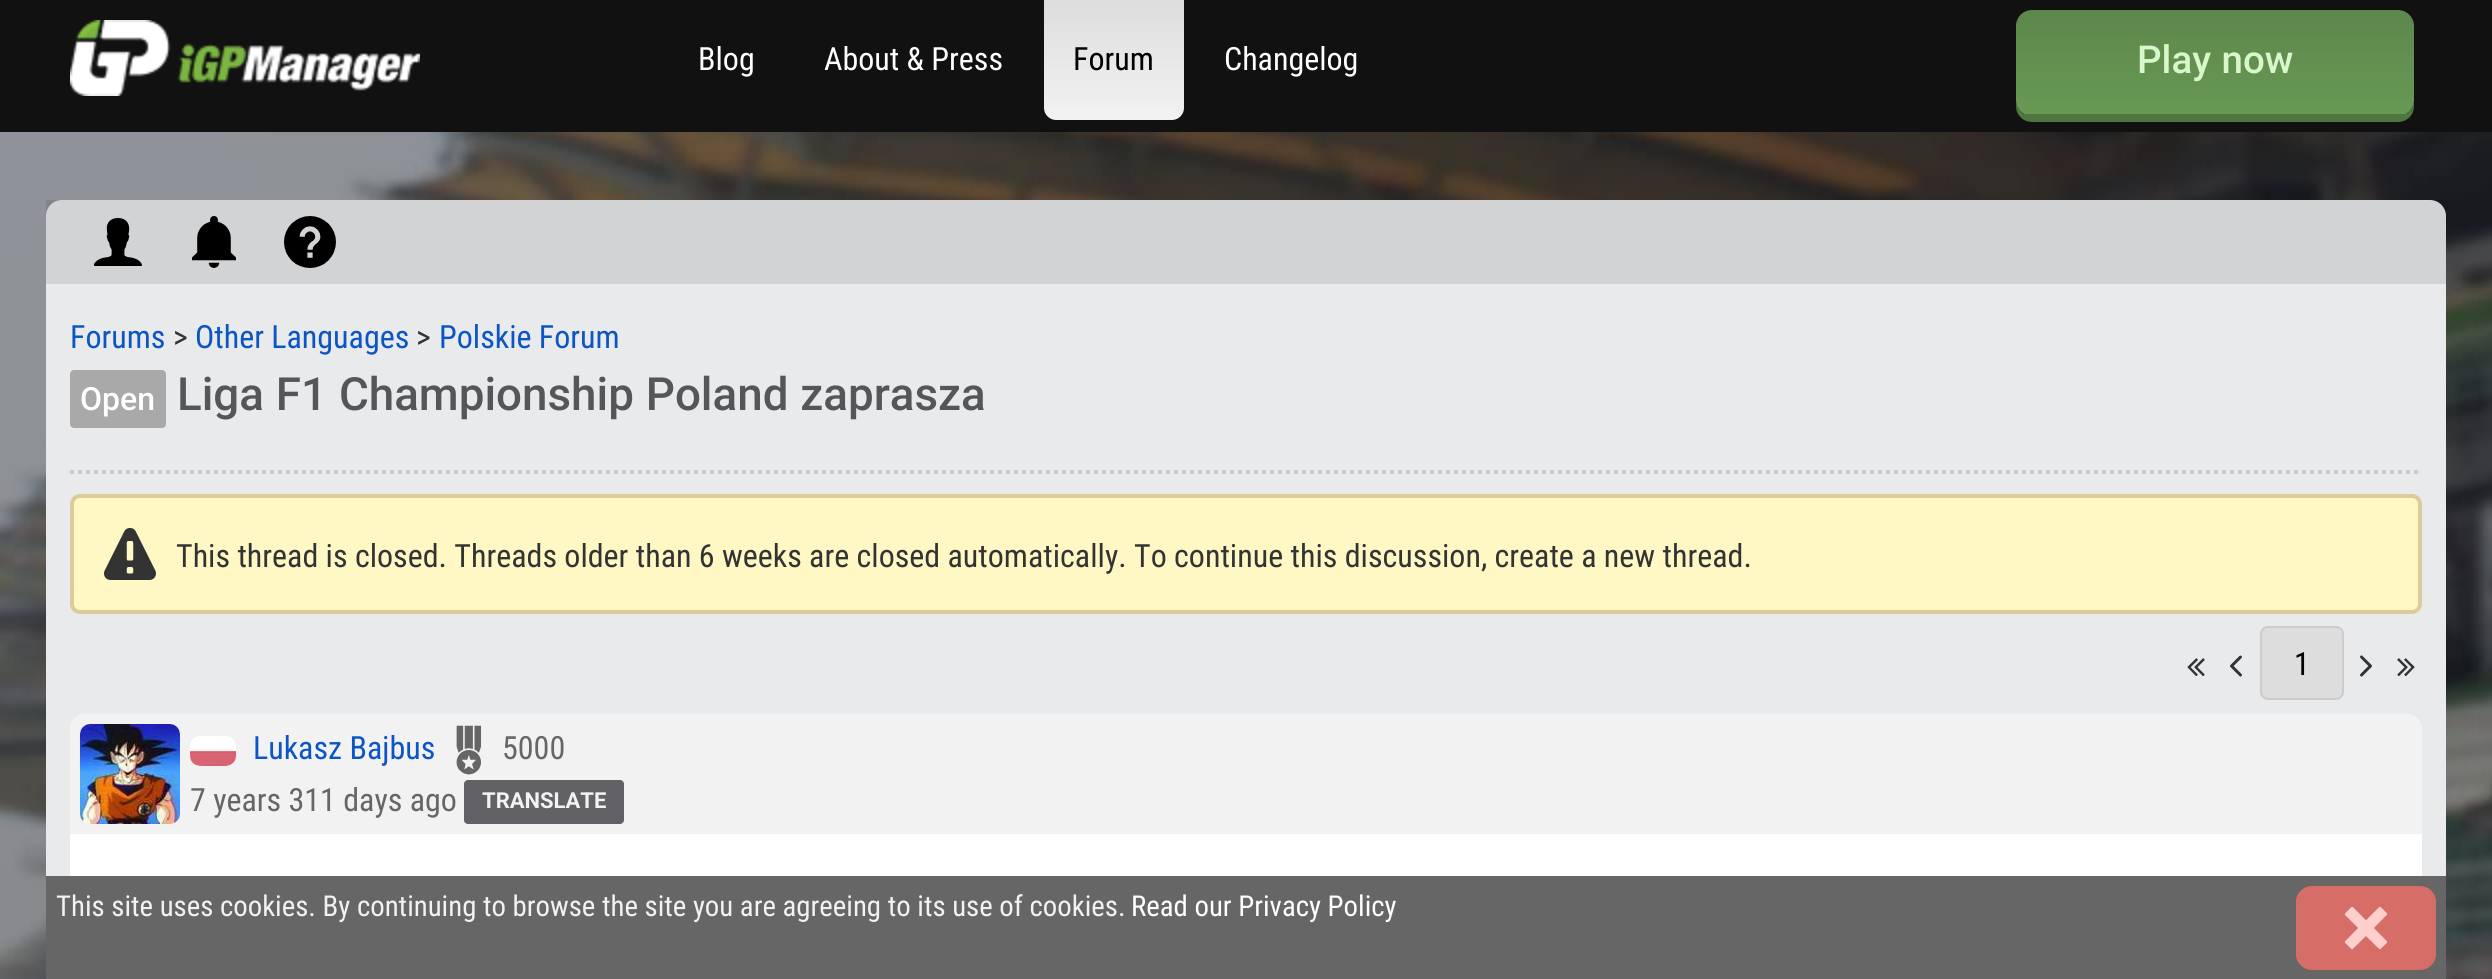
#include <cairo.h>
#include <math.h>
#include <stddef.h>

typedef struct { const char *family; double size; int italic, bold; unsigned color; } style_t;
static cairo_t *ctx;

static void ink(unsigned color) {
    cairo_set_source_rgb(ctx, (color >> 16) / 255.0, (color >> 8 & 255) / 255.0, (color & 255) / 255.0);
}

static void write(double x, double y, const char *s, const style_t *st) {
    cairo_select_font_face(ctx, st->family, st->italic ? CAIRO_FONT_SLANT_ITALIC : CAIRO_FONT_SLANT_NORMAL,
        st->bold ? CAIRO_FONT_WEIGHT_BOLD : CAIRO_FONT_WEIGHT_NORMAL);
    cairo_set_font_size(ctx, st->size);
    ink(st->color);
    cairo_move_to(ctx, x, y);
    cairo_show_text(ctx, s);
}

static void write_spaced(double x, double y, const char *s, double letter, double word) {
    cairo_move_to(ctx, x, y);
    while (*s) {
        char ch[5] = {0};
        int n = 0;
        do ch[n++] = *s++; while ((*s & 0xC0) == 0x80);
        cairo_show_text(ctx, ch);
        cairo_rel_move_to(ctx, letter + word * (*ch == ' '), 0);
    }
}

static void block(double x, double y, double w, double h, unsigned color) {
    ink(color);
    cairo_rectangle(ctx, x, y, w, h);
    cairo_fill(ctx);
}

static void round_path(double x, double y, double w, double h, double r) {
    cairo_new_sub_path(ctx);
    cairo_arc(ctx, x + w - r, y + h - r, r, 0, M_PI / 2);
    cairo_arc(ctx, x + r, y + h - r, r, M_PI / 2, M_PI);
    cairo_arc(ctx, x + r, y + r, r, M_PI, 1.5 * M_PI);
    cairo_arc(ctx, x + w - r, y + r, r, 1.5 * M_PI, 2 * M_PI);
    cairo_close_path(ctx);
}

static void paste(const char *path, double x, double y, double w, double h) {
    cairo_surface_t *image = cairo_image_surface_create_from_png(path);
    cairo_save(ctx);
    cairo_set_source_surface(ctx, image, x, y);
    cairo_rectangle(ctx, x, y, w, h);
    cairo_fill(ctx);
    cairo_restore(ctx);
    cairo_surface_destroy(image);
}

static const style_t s1 = {"Roboto Condensed", 32, 0, 0, 0xffffff};
static const style_t s2 = {"Roboto Condensed", 32, 0, 0, 0x000000};
static const style_t s3 = {"Roboto Condensed", 32, 0, 0, 0x0b55c4};
static const style_t s4 = {"Roboto Condensed", 32, 0, 0, 0x333333};
static const style_t s5 = {"Roboto Medium", 32, 0, 0, 0xffffff};
static const style_t s6 = {"Roboto Condensed", 32, 0, 0, 0x666666};
static const style_t s7 = {"Roboto", 22, 0, 1, 0xf2f2f2};
static const style_t s8 = {"Roboto Condensed", 28.8, 0, 0, 0xf2f2f2};
static const style_t s9 = {"Roboto Condensed", 28.8, 0, 0, 0xffffff};

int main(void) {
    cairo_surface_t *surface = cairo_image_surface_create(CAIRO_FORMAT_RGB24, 2492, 979);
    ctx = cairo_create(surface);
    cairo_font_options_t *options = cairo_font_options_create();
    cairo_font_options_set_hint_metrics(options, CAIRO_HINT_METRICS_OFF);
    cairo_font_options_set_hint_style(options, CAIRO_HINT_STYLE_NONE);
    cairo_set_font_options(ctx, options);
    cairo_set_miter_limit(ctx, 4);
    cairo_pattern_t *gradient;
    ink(0xffffff);
    cairo_paint(ctx);
    paste("pic1.png", 0, 132, 2492, 847);
    block(0, 0, 2492, 132, 0x111111);
    paste("pic2.png", 70, 20, 350, 76);
    write(698, 70, "Blog", &s1);
    write(824, 70, "About & Press", &s1);
    gradient = cairo_pattern_create_linear(1114, 120, 1114, 0);
    cairo_pattern_add_color_stop_rgba(gradient, 0, 0.949, 0.949, 0.949, 1);
    cairo_pattern_add_color_stop_rgba(gradient, 1, 0.867, 0.867, 0.867, 1);
    cairo_set_source(ctx, gradient);
    cairo_pattern_destroy(gradient);
    cairo_new_path(ctx);
    cairo_move_to(ctx, 1044, 0);
    cairo_line_to(ctx, 1184, 0);
    cairo_line_to(ctx, 1184, 108);
    cairo_curve_to(ctx, 1184, 114.5, 1178.5, 120, 1172, 120);
    cairo_line_to(ctx, 1056, 120);
    cairo_curve_to(ctx, 1049.5, 120, 1044, 114.5, 1044, 108);
    cairo_close_path(ctx);
    cairo_fill(ctx);
    write(1073, 70, "Forum", &s2);
    write(1224, 70, "Changelog", &s1);
    ink(0x4f7540);
    cairo_new_path(ctx);
    cairo_move_to(ctx, 2016, 100);
    cairo_line_to(ctx, 2016, 106);
    cairo_curve_to(ctx, 2016, 115, 2023, 122, 2032, 122);
    cairo_line_to(ctx, 2398, 122);
    cairo_curve_to(ctx, 2407, 122, 2414, 115, 2414, 106);
    cairo_line_to(ctx, 2414, 100);
    cairo_curve_to(ctx, 2414, 109, 2407, 116, 2398, 116);
    cairo_line_to(ctx, 2032, 116);
    cairo_curve_to(ctx, 2023, 116, 2016, 109, 2016, 100);
    cairo_close_path(ctx);
    cairo_fill(ctx);
    cairo_save(ctx);
    round_path(2016, 10, 398, 106, 16);
    cairo_clip(ctx);
    gradient = cairo_pattern_create_linear(2215, 114, 2215, 10);
    cairo_pattern_add_color_stop_rgba(gradient, 0, 0.408, 0.6, 0.329, 1);
    cairo_pattern_add_color_stop_rgba(gradient, 1, 0.365, 0.529, 0.298, 1);
    cairo_set_source(ctx, gradient);
    cairo_pattern_destroy(gradient);
    cairo_new_path(ctx);
    cairo_move_to(ctx, 2032, 10);
    cairo_line_to(ctx, 2398, 10);
    cairo_curve_to(ctx, 2407, 10, 2414, 17, 2414, 26);
    cairo_line_to(ctx, 2414, 114);
    cairo_line_to(ctx, 2016, 114);
    cairo_line_to(ctx, 2016, 26);
    cairo_curve_to(ctx, 2016, 17, 2023, 10, 2032, 10);
    cairo_close_path(ctx);
    cairo_fill(ctx);
    cairo_restore(ctx);
    block(2024, 114, 382, 2, 0x4f7540);
    cairo_select_font_face(ctx, "Roboto Medium", CAIRO_FONT_SLANT_NORMAL, CAIRO_FONT_WEIGHT_NORMAL);
    cairo_set_font_size(ctx, 38.5);
    ink(0xd8f7cb);
    write_spaced(2137, 73, "Play now", 0, 1);
    ink(0xe9eaec);
    round_path(46, 200, 2400, 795, 16);
    cairo_fill(ctx);
    cairo_set_source_rgba(ctx, 0, 0, 0, 0.1);
    cairo_rectangle(ctx, 46, 200, 2400, 84);
    cairo_fill(ctx);
    paste("pic3.png", 94, 218, 48, 48);
    paste("pic4.png", 192, 216, 44, 52);
    paste("pic5.png", 284, 216, 52, 52);
    write(70, 348, "Forums", &s3);
    write(173, 348, ">", &s4);
    write(195, 348, "Other Languages", &s3);
    write(416, 348, ">", &s4);
    write(439, 348, "Polskie Forum", &s3);
    ink(0xa9a9a9);
    round_path(70, 370, 96, 58, 4);
    cairo_fill(ctx);
    write(80, 410, "Open", &s5);
    cairo_set_font_size(ctx, 45.75);
    ink(0x555659);
    write_spaced(177, 410, "Liga F1 Championship Poland zaprasza", 0, 0.5);
    cairo_new_path(ctx);
    cairo_move_to(ctx, 70, 472);
    cairo_line_to(ctx, 2422, 472);
    ink(0xcccccc);
    cairo_set_line_width(ctx, 4);
    cairo_set_dash(ctx, (double[]){4, 4}, 2, 0);
    cairo_stroke(ctx);
    ink(0xfff8c4);
    round_path(72, 496, 2348, 116, 8);
    cairo_fill_preserve(ctx);
    ink(0xddcb9b);
    cairo_set_dash(ctx, NULL, 0, 0);
    cairo_stroke(ctx);
    paste("pic6.png", 104, 528, 52, 52);
    write(176, 567, "This thread is closed. Threads older than 6 weeks are closed automatically. To continue this discussion, create a new thread.", &s4);
    paste("pic7.png", 2187, 658, 18, 18);
    paste("pic8.png", 2230, 655, 12, 22);
    ink(0xdddddd);
    round_path(2261, 627, 82, 72, 7);
    cairo_fill_preserve(ctx);
    ink(0xcccccc);
    cairo_set_line_width(ctx, 2);
    cairo_stroke(ctx);
    write(2294, 675, "1", &s2);
    paste("pic9.png", 2360, 655, 12, 22);
    paste("pic10.png", 2397, 658, 18, 18);
    ink(0xffffff);
    round_path(70, 714, 2352, 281, 16);
    cairo_fill(ctx);
    ink(0xf2f2f2);
    cairo_new_path(ctx);
    cairo_move_to(ctx, 86, 714);
    cairo_line_to(ctx, 2406, 714);
    cairo_curve_to(ctx, 2415, 714, 2422, 721, 2422, 730);
    cairo_line_to(ctx, 2422, 834);
    cairo_line_to(ctx, 70, 834);
    cairo_line_to(ctx, 70, 730);
    cairo_curve_to(ctx, 70, 721, 77, 714, 86, 714);
    cairo_close_path(ctx);
    cairo_fill(ctx);
    paste("pic11.png", 80, 724, 100, 100);
    paste("pic12.png", 190, 736, 46, 30);
    write(253, 759, "Lukasz Bajbus", &s3);
    paste("pic13.png", 456, 725, 25, 50);
    write(502, 759, "5000", &s6);
    write(190, 811, "7 years 311 days ago", &s6);
    ink(0x616166);
    round_path(464, 780, 160, 44, 4);
    cairo_fill(ctx);
    write(482, 808, "TRANSLATE", &s7);
    block(46, 876, 2400, 103, 0x666666);
    write(56, 916, "This site uses cookies. By continuing to browse the site you are agreeing to its use of cookies.", &s8);
    write(1131, 916, "Read our Privacy Policy", &s9);
    ink(0xd66e67);
    round_path(2296, 886, 140, 84, 16);
    cairo_fill(ctx);
    paste("pic14.png", 2344, 906, 44, 44);
    cairo_surface_write_to_png(surface, "screenshot.png");
    cairo_font_options_destroy(options);
    cairo_destroy(ctx);
    cairo_surface_destroy(surface);
    return 0;
}
